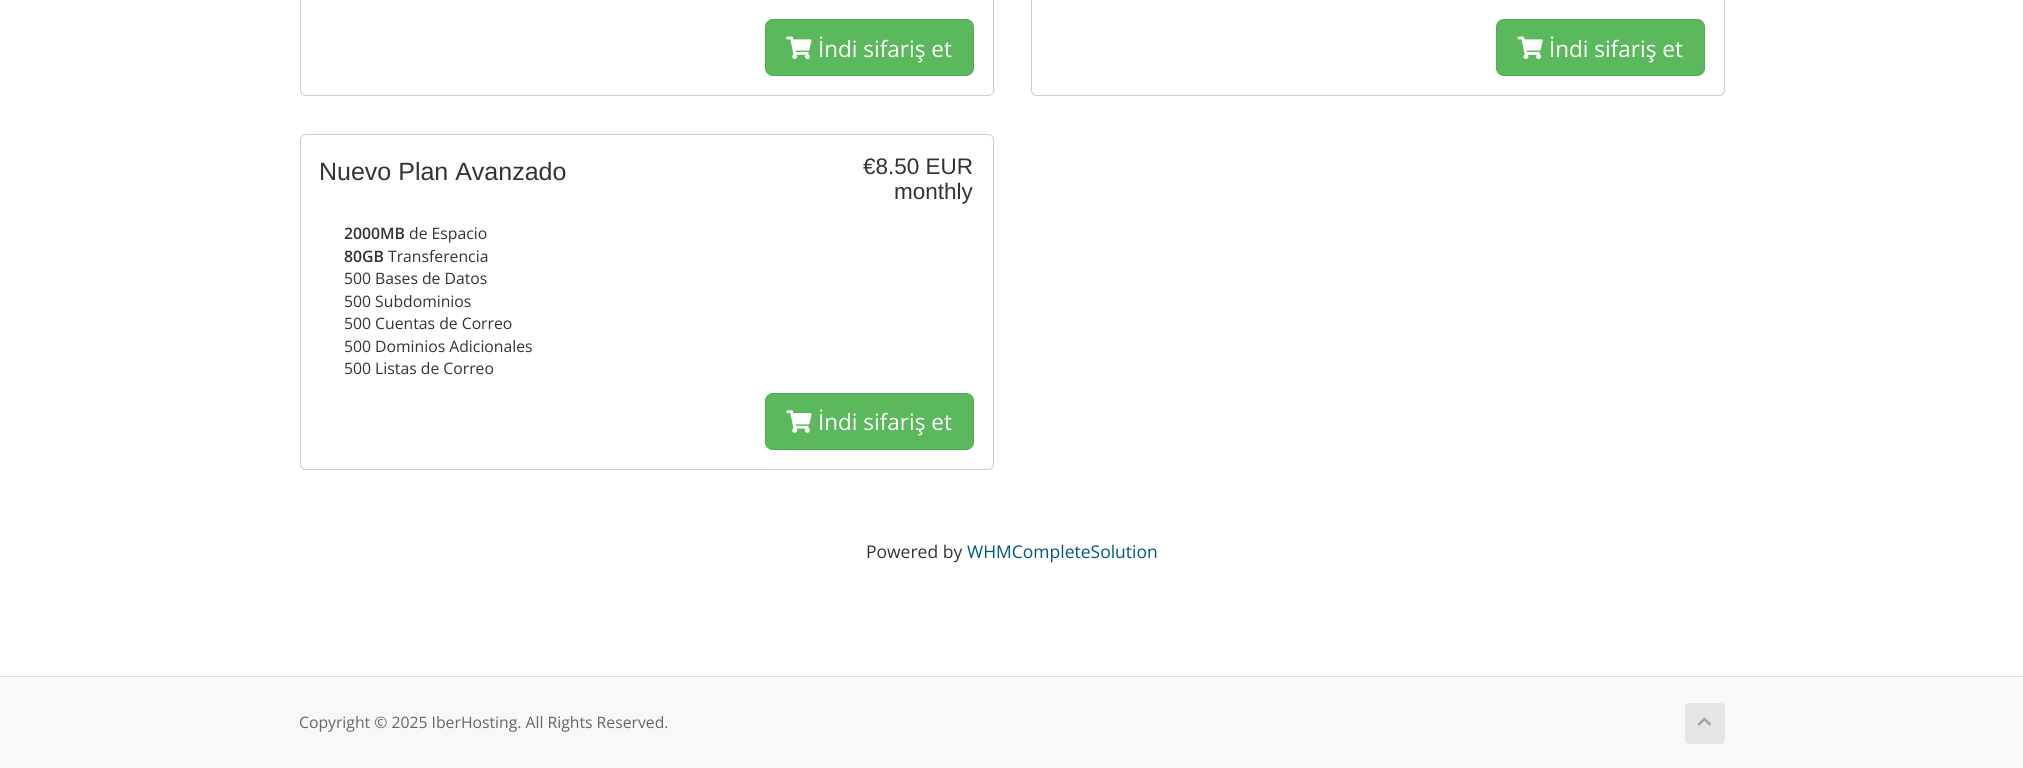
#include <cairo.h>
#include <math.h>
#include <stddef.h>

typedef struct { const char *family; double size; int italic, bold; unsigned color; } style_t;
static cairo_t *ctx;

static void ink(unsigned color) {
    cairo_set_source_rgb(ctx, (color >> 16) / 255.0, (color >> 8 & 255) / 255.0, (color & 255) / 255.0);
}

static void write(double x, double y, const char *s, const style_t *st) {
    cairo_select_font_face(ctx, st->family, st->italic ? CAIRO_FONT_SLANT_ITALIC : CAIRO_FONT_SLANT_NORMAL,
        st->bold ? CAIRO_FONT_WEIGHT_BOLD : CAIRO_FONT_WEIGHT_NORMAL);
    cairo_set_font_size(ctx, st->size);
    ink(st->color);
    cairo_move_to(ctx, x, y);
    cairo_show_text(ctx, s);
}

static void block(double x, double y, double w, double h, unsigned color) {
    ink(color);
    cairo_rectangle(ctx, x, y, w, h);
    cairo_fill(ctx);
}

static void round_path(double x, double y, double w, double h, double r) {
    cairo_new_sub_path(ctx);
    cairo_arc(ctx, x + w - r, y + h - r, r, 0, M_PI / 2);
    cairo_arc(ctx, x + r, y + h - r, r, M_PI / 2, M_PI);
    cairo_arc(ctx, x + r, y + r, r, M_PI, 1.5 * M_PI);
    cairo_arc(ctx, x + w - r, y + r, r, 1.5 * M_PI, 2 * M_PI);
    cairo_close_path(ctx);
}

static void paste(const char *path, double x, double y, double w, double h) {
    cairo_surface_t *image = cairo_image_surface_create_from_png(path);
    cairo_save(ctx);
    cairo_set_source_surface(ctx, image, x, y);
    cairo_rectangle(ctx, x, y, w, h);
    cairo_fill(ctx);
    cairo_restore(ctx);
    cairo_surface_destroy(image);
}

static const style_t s1 = {"Open Sans", 22.5, 0, 0, 0xffffff};
static const style_t s2 = {"Liberation Sans", 25, 0, 0, 0x333333};
static const style_t s3 = {"Liberation Sans", 22.5, 0, 0, 0x333333};
static const style_t s4 = {"Open Sans SemiBold", 15.75, 0, 0, 0x333333};
static const style_t s5 = {"Open Sans", 15.75, 0, 0, 0x333333};
static const style_t s6 = {"Open Sans", 17.5, 0, 0, 0x333333};
static const style_t s7 = {"Open Sans", 17.5, 0, 0, 0x005588};
static const style_t s8 = {"Open Sans", 15.75, 0, 0, 0x666666};

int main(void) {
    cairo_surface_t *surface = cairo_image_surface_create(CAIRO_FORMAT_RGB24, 2023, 768);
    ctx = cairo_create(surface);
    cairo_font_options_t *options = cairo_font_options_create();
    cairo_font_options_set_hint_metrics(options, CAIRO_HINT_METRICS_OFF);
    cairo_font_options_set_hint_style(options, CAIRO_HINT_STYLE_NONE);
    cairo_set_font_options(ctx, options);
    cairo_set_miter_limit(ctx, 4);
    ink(0xf8f8f8);
    cairo_paint(ctx);
    block(0, 0, 2023, 676, 0xffffff);
    round_path(300.5, -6.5, 693, 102, 5.5);
    ink(0xcccccc);
    cairo_set_line_width(ctx, 1);
    cairo_stroke(ctx);
    ink(0x5cb85c);
    round_path(765.5, 19.5, 208, 56, 7.5);
    cairo_fill_preserve(ctx);
    ink(0x4cae4c);
    cairo_stroke(ctx);
    paste("pic1.png", 786, 36, 26, 23);
    write(818, 57, "İndi sifariş et", &s1);
    round_path(1031.5, -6.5, 693, 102, 5.5);
    ink(0xcccccc);
    cairo_stroke(ctx);
    ink(0x5cb85c);
    round_path(1496.5, 19.5, 208, 56, 7.5);
    cairo_fill_preserve(ctx);
    ink(0x4cae4c);
    cairo_stroke(ctx);
    paste("pic2.png", 1517, 36, 26, 23);
    write(1549, 57, "İndi sifariş et", &s1);
    round_path(300.5, 134.5, 693, 335, 5.5);
    ink(0xcccccc);
    cairo_stroke(ctx);
    write(319, 180, "Nuevo Plan Avanzado", &s2);
    write(863, 174, "€8.50 EUR", &s3);
    write(894, 199, "monthly", &s3);
    write(344, 239, "2000MB", &s4);
    write(409, 239, "de Espacio", &s5);
    write(344, 262, "80GB", &s4);
    write(388, 262, "Transferencia", &s5);
    write(344, 284, "500 Bases de Datos", &s5);
    write(344, 307, "500 Subdominios", &s5);
    write(344, 329, "500 Cuentas de Correo", &s5);
    write(344, 352, "500 Dominios Adicionales", &s5);
    write(344, 374, "500 Listas de Correo", &s5);
    ink(0x5cb85c);
    round_path(765.5, 393.5, 208, 56, 7.5);
    cairo_fill_preserve(ctx);
    ink(0x4cae4c);
    cairo_stroke(ctx);
    paste("pic3.png", 786, 410, 26, 23);
    write(818, 430, "İndi sifariş et", &s1);
    write(866, 558, "Powered by", &s6);
    write(967, 558, "WHMCompleteSolution", &s7);
    block(0, 676, 2023, 1, 0xdddddd);
    write(299, 728, "Copyright © 2025 IberHosting. All Rights Reserved.", &s8);
    ink(0xe5e5e5);
    round_path(1685, 703, 40, 41, 4);
    cairo_fill(ctx);
    paste("pic4.png", 1697, 717, 14, 9);
    cairo_surface_write_to_png(surface, "screenshot.png");
    cairo_font_options_destroy(options);
    cairo_destroy(ctx);
    cairo_surface_destroy(surface);
    return 0;
}
